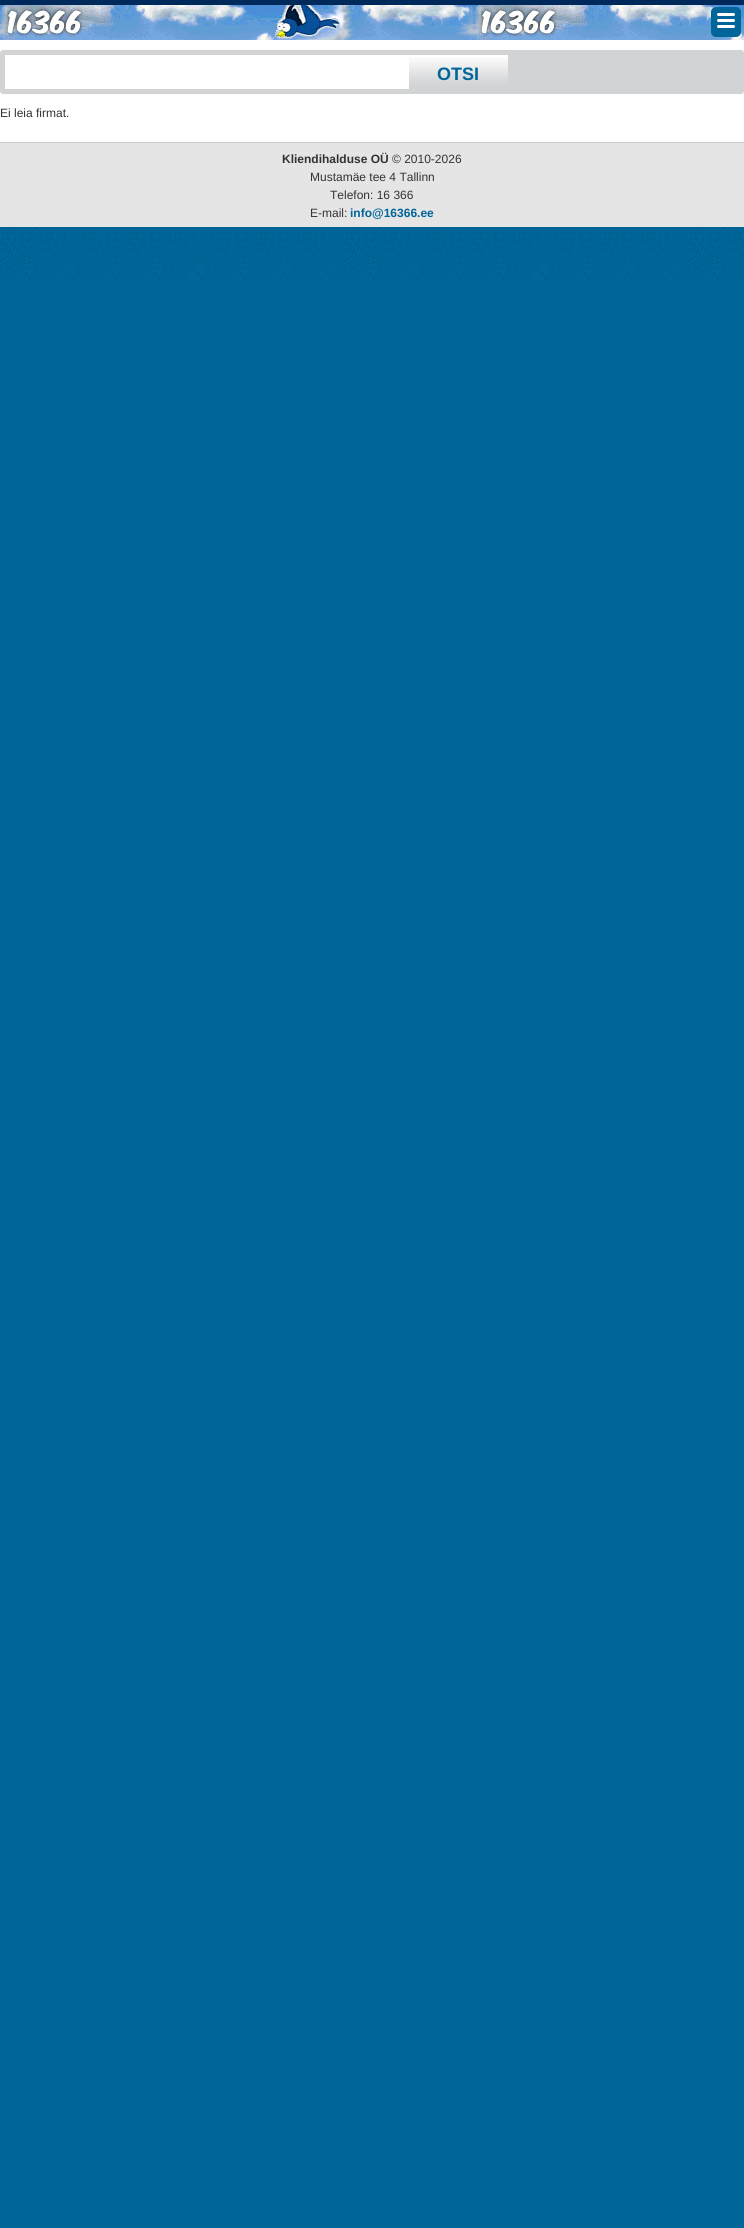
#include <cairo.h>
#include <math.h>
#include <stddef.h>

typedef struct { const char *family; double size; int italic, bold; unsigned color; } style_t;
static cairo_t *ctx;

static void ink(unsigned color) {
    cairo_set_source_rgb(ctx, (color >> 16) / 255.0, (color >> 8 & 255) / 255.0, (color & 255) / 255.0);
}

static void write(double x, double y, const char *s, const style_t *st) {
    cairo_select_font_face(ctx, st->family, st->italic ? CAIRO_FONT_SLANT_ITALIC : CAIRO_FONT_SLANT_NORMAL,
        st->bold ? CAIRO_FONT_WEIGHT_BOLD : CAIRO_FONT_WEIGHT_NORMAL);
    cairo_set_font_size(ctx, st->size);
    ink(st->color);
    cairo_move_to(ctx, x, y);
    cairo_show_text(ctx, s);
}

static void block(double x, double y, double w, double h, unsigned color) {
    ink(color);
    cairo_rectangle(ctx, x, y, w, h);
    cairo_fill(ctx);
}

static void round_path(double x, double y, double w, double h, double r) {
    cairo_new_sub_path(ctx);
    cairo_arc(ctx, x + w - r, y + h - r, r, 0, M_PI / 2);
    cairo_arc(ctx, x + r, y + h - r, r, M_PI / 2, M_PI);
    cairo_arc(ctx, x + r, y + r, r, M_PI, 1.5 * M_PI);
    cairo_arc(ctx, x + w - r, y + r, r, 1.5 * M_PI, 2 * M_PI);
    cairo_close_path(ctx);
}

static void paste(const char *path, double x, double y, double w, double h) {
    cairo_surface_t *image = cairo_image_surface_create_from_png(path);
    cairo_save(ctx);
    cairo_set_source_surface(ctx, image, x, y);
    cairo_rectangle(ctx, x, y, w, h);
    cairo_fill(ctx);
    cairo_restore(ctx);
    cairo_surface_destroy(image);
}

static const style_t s1 = {"Liberation Sans", 18, 0, 1, 0x006599};
static const style_t s2 = {"Liberation Sans", 12, 0, 0, 0x333333};
static const style_t s3 = {"Liberation Sans", 12, 0, 1, 0x333333};
static const style_t s4 = {"Liberation Sans", 12, 0, 1, 0x006599};

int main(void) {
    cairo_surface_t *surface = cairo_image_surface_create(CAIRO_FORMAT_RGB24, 744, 2228);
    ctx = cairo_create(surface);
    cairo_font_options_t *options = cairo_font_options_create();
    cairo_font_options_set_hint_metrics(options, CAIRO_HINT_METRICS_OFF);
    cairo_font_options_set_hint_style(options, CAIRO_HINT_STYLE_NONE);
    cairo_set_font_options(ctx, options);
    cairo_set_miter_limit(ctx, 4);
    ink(0x006599);
    cairo_paint(ctx);
    paste("pic1.png", 0, 0, 744, 280);
    paste("pic2.png", 0, 5, 744, 35);
    ink(0x006599);
    round_path(711, 7, 30, 30, 5);
    cairo_fill(ctx);
    ink(0xffffff);
    round_path(717, 13, 18, 3, 1.5);
    cairo_fill(ctx);
    round_path(717, 19, 18, 3, 1.5);
    cairo_fill(ctx);
    round_path(717, 25, 18, 3, 1.5);
    cairo_fill(ctx);
    block(0, 40, 744, 102, 0xffffff);
    ink(0xd2d3d5);
    round_path(0, 50, 744, 44, 3);
    cairo_fill(ctx);
    block(5, 55, 404, 34, 0xffffff);
    block(409, 55, 99, 2, 0xffffff);
    paste("pic3.png", 409, 57, 99, 32);
    write(437, 80, "OTSI", &s1);
    write(0, 117, "Ei leia firmat.", &s2);
    block(0, 143, 744, 84, 0xe5e5e5);
    block(0, 142, 744, 1, 0xcccccc);
    write(282, 163, "Kliendihalduse OÜ", &s3);
    write(392, 163, "© 2010-2026", &s2);
    write(310, 181, "Mustamäe tee 4 Tallinn", &s2);
    write(330, 199, "Telefon: 16 366", &s2);
    write(310, 217, "E-mail:", &s2);
    write(350, 217, "info@16366.ee", &s4);
    cairo_surface_write_to_png(surface, "screenshot.png");
    cairo_font_options_destroy(options);
    cairo_destroy(ctx);
    cairo_surface_destroy(surface);
    return 0;
}
